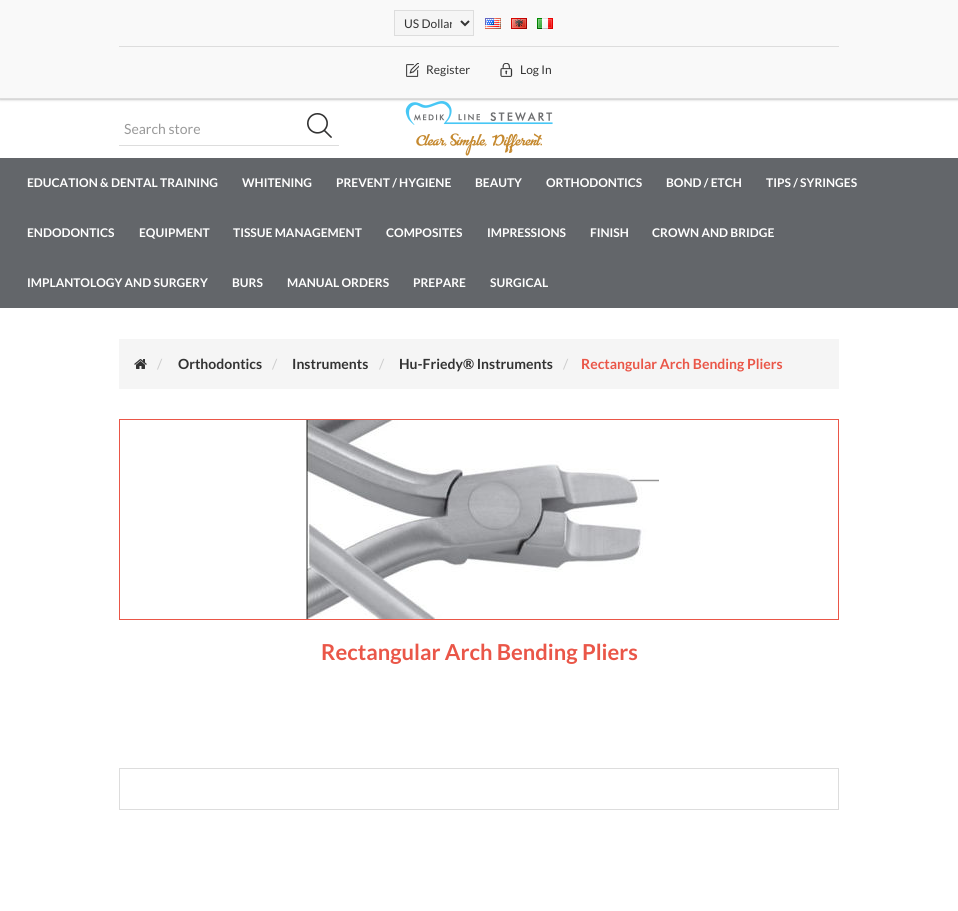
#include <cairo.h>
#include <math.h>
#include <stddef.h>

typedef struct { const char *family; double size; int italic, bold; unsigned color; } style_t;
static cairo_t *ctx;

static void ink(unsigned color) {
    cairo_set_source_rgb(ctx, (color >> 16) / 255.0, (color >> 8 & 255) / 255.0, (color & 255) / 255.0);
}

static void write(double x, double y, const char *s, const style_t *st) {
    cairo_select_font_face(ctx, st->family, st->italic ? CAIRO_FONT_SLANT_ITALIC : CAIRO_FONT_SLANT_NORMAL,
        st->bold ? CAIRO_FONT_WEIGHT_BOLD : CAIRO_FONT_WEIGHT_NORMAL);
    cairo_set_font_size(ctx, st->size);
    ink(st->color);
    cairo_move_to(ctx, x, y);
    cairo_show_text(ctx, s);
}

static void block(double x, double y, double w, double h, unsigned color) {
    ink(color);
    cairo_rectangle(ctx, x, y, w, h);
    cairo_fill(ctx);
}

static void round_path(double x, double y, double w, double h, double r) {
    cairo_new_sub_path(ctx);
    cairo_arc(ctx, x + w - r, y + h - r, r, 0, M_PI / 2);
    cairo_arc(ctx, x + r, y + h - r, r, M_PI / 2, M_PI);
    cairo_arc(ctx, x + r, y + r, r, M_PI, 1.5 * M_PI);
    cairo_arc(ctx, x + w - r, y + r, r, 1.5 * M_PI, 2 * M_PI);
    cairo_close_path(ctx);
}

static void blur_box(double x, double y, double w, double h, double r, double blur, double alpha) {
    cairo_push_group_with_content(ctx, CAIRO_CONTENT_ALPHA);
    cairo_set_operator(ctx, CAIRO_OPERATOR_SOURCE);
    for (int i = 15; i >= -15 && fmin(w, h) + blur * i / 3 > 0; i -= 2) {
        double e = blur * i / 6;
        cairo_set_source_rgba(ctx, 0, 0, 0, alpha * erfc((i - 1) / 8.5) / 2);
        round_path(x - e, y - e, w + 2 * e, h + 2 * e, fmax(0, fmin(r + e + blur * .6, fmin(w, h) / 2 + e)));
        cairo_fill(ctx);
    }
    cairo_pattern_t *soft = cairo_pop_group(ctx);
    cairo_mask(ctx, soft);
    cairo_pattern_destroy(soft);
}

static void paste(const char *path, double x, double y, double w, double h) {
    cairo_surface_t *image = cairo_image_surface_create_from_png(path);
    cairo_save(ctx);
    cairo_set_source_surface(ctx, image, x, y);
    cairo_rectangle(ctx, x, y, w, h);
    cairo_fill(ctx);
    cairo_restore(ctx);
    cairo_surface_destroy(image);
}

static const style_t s1 = {"Lato", 12, 0, 0, 0x333333};
static const style_t s2 = {"Lato", 14, 0, 0, 0x999999};
static const style_t s3 = {"Lato", 12, 0, 1, 0xffffff};
static const style_t s4 = {"Lato", 14, 0, 0, 0xcccccc};
static const style_t s5 = {"Lato", 14, 0, 1, 0x333333};
static const style_t s6 = {"Lato", 14, 0, 1, 0xea5648};
static const style_t s7 = {"Lato", 22, 0, 1, 0xea5648};

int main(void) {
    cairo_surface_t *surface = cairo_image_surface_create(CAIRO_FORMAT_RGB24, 958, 911);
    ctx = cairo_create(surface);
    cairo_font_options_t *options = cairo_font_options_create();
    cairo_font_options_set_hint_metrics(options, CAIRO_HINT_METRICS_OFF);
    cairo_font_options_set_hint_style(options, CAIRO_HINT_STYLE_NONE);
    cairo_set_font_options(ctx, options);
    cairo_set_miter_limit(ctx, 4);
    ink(0xffffff);
    cairo_paint(ctx);
    ink(0x999999);
    blur_box(0, 0, 958, 99, 0, 1.5, 1);
    block(0, 0, 958, 98, 0xf9f9f9);
    block(0, 98, 958, 1, 0xdddddd);
    block(119, 46, 720, 1, 0xdddddd);
    ink(0xf5f5f5);
    cairo_rectangle(ctx, 394.5, 10.5, 79, 25);
    cairo_fill_preserve(ctx);
    ink(0xdddddd);
    cairo_set_line_width(ctx, 1);
    cairo_stroke(ctx);
    cairo_new_path(ctx);
    cairo_move_to(ctx, 461, 21);
    cairo_line_to(ctx, 465, 25);
    cairo_line_to(ctx, 469, 21);
    ink(0x333333);
    cairo_set_line_width(ctx, 2);
    cairo_stroke(ctx);
    cairo_save(ctx);
    cairo_rectangle(ctx, 404, 15, 48, 17);
    cairo_clip(ctx);
    write(404, 28, "US Dollar", &s1);
    cairo_restore(ctx);
    paste("pic1.png", 485, 18, 16, 11);
    paste("pic2.png", 511, 18, 16, 11);
    paste("pic3.png", 537, 18, 16, 11);
    paste("pic4.png", 406, 63, 13, 14);
    write(426, 74, "Register", &s1);
    paste("pic5.png", 500, 63, 13, 14);
    write(520, 74, "Log In", &s1);
    block(119, 145, 220, 1, 0xdddddd);
    write(124, 134, "Search store", &s2);
    paste("pic6.png", 307, 113, 25, 25);
    paste("pic7.png", 405, 101, 148, 55);
    block(0, 158, 958, 150, 0x63666a);
    write(27, 187, "EDUCATION & DENTAL TRAINING", &s3);
    write(242, 187, "WHITENING", &s3);
    write(336, 187, "PREVENT / HYGIENE", &s3);
    write(475, 187, "BEAUTY", &s3);
    write(546, 187, "ORTHODONTICS", &s3);
    write(666, 187, "BOND / ETCH", &s3);
    write(766, 187, "TIPS / SYRINGES", &s3);
    write(27, 237, "ENDODONTICS", &s3);
    write(139, 237, "EQUIPMENT", &s3);
    write(233, 237, "TISSUE MANAGEMENT", &s3);
    write(386, 237, "COMPOSITES", &s3);
    write(487, 237, "IMPRESSIONS", &s3);
    write(590, 237, "FINISH", &s3);
    write(652, 237, "CROWN AND BRIDGE", &s3);
    write(27, 287, "IMPLANTOLOGY AND SURGERY", &s3);
    write(232, 287, "BURS", &s3);
    write(287, 287, "MANUAL ORDERS", &s3);
    write(413, 287, "PREPARE", &s3);
    write(490, 287, "SURGICAL", &s3);
    block(119, 339, 720, 50, 0xf5f5f5);
    paste("pic8.png", 134, 359, 13, 10);
    write(157, 369, "/", &s4);
    write(178, 369, "Orthodontics", &s5);
    write(272, 369, "/", &s4);
    write(292, 369, "Instruments", &s5);
    write(379, 369, "/", &s4);
    write(399, 369, "Hu-Friedy® Instruments", &s5);
    write(563, 369, "/", &s4);
    write(581, 369, "Rectangular Arch Bending Pliers", &s6);
    cairo_rectangle(ctx, 119.5, 419.5, 719, 200);
    cairo_set_line_width(ctx, 1);
    cairo_stroke(ctx);
    paste("pic9.png", 306, 420, 353, 199);
    write(321, 660, "Rectangular Arch Bending Pliers", &s7);
    cairo_rectangle(ctx, 119.5, 768.5, 719, 41);
    ink(0xdddddd);
    cairo_stroke(ctx);
    cairo_surface_write_to_png(surface, "screenshot.png");
    cairo_font_options_destroy(options);
    cairo_destroy(ctx);
    cairo_surface_destroy(surface);
    return 0;
}
